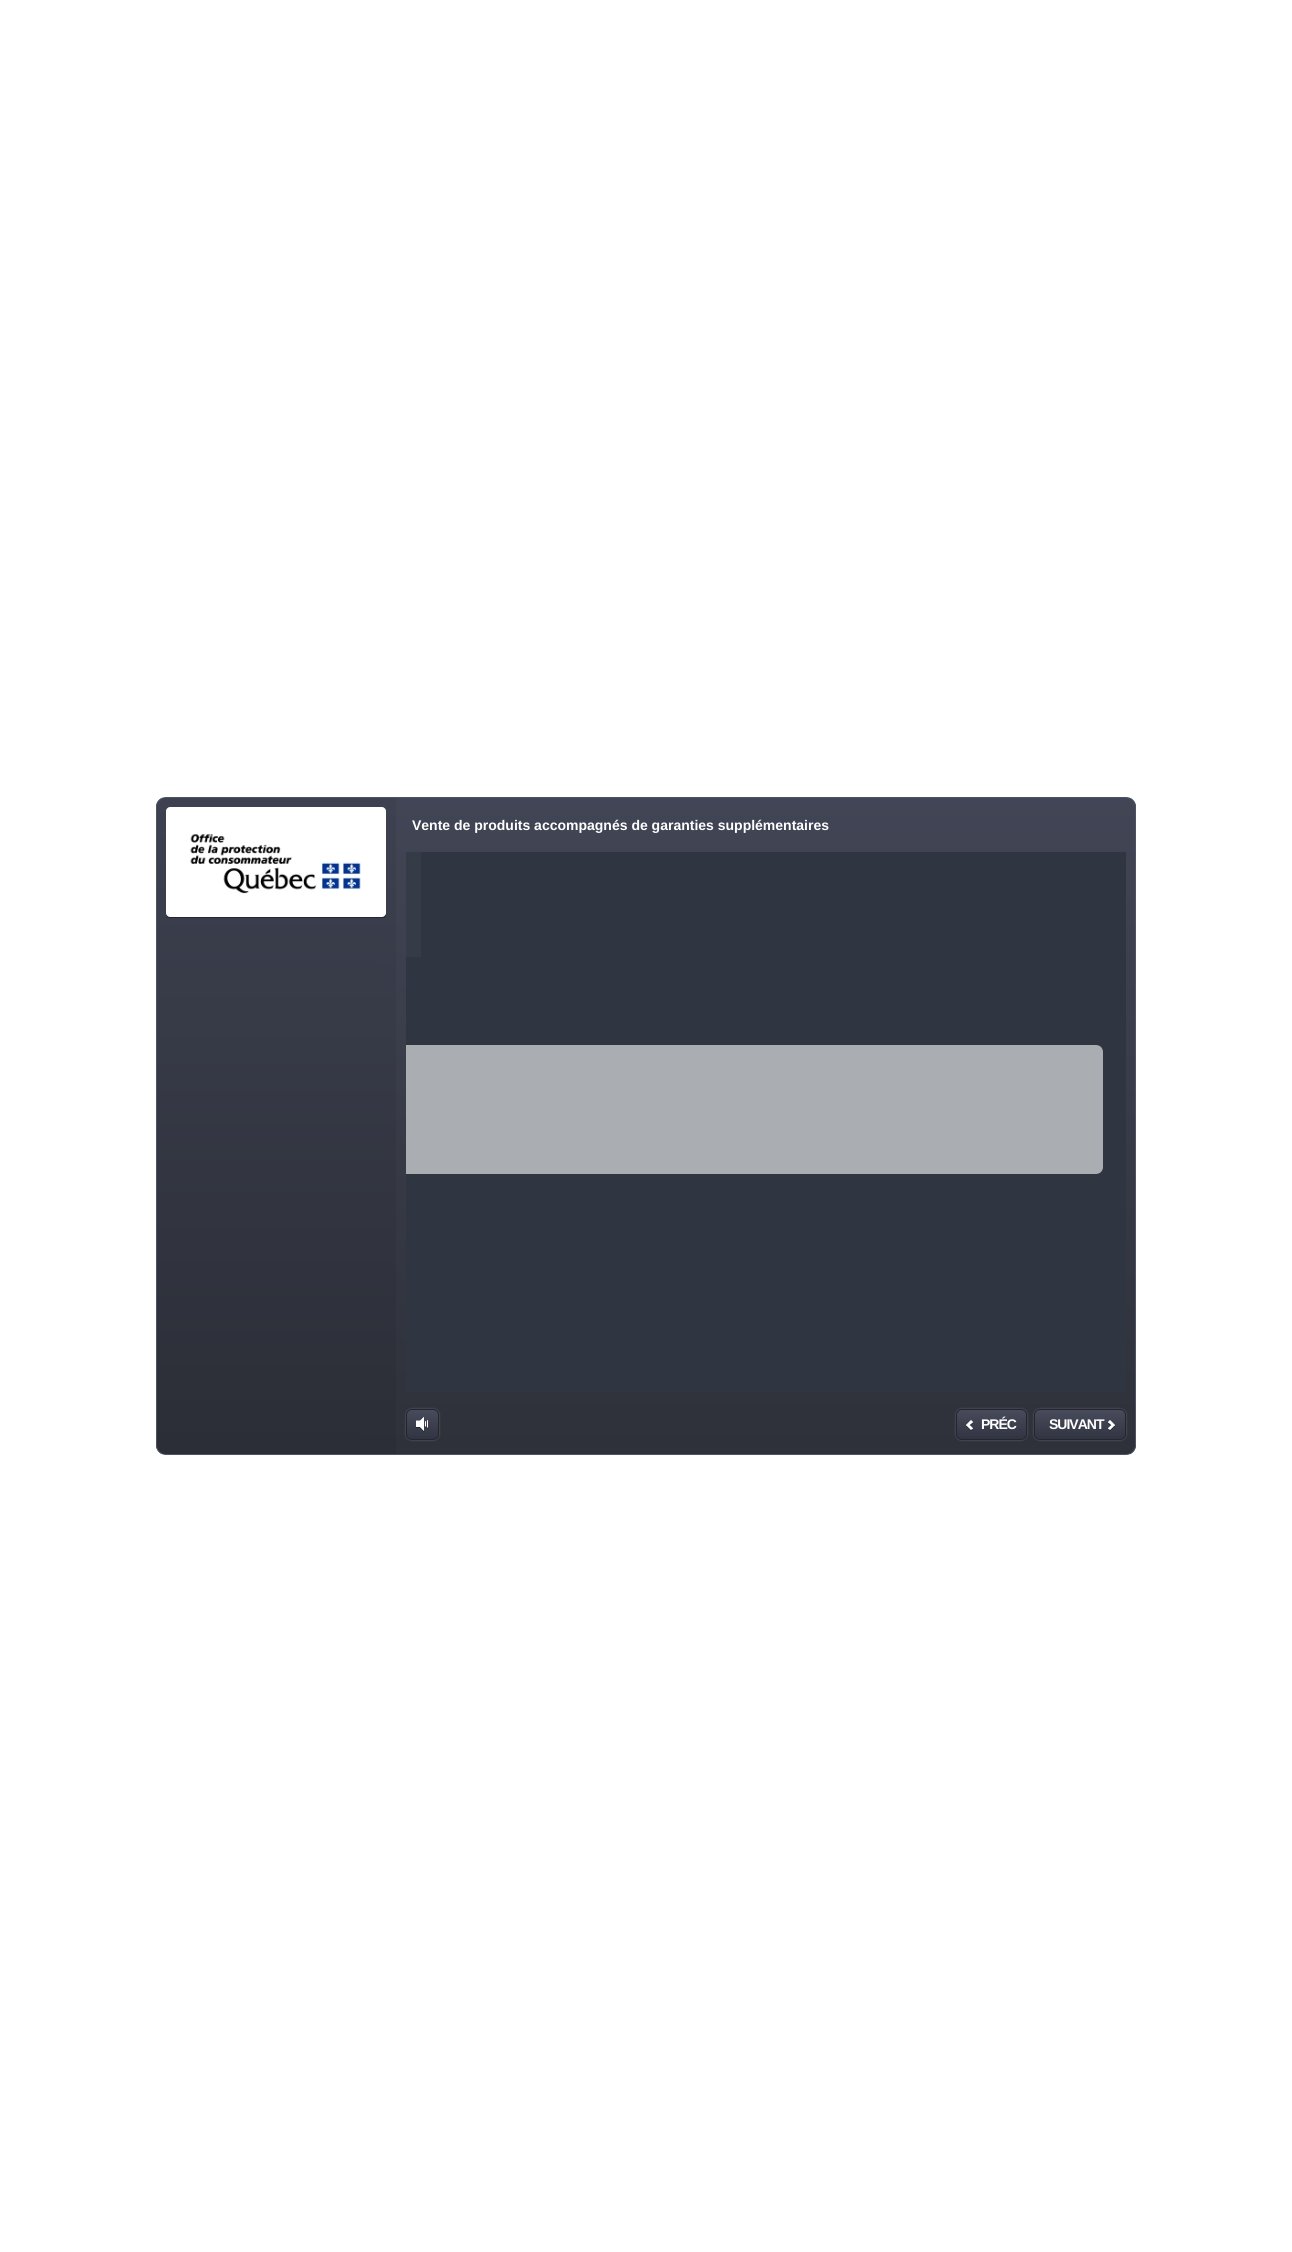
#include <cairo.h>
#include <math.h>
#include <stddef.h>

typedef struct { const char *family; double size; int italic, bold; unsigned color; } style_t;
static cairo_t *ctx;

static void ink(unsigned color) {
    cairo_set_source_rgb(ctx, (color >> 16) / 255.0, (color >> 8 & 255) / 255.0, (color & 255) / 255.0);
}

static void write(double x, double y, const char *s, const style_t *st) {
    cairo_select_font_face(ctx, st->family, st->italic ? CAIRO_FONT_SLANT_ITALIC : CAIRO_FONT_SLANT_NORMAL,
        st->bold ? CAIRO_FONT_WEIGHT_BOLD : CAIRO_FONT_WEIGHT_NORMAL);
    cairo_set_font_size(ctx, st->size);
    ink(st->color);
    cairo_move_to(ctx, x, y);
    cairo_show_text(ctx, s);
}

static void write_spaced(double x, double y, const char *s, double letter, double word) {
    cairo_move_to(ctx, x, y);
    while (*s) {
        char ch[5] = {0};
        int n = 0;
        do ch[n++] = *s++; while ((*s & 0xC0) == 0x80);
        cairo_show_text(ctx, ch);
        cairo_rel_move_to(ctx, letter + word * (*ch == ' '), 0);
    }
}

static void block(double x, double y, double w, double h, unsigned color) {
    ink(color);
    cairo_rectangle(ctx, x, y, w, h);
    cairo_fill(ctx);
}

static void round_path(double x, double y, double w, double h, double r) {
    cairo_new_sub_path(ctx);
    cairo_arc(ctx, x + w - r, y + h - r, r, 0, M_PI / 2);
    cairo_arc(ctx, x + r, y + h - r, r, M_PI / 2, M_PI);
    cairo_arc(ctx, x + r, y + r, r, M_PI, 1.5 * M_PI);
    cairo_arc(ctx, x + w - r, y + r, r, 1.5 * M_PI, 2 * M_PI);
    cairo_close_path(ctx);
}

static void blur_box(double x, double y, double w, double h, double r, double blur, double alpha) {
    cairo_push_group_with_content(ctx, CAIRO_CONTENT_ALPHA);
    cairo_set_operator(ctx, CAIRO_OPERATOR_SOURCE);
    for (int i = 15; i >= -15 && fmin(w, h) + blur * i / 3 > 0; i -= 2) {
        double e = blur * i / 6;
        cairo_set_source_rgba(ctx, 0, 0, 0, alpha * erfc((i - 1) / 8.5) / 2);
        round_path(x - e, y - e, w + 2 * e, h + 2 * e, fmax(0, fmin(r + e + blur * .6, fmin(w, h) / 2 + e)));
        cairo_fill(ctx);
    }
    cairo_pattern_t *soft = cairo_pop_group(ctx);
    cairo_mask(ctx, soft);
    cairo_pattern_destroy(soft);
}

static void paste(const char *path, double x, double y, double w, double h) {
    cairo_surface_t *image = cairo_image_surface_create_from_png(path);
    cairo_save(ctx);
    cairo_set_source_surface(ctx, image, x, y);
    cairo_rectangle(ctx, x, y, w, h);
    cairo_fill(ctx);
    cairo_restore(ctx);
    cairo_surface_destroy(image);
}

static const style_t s1 = {"Liberation Sans", 14, 0, 1, 0xffffff};

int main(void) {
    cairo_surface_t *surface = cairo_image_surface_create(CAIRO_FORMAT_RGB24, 1292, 2252);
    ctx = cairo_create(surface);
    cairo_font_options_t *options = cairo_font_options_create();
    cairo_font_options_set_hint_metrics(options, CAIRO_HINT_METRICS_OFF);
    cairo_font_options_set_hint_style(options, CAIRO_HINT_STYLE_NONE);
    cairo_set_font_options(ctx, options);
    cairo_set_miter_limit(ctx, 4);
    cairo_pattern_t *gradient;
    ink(0xffffff);
    cairo_paint(ctx);
    cairo_save(ctx);
    round_path(156, 797, 980, 658, 10);
    cairo_clip(ctx);
    gradient = cairo_pattern_create_linear(646, 798, 646, 1454);
    cairo_pattern_add_color_stop_rgba(gradient, 0, 0.255, 0.271, 0.333, 1);
    cairo_pattern_add_color_stop_rgba(gradient, 1, 0.18, 0.192, 0.224, 1);
    cairo_set_source(ctx, gradient);
    cairo_pattern_destroy(gradient);
    cairo_rectangle(ctx, 156, 798, 980, 656);
    cairo_fill(ctx);
    cairo_restore(ctx);
    round_path(156.5, 797.5, 979, 657, 9.5);
    ink(0x4d5365);
    cairo_set_line_width(ctx, 1);
    cairo_stroke(ctx);
    gradient = cairo_pattern_create_linear(646, 798, 646, 1454);
    cairo_pattern_add_color_stop_rgba(gradient, 0, 0.255, 0.271, 0.333, 1);
    cairo_pattern_add_color_stop_rgba(gradient, 1, 0.18, 0.192, 0.224, 1);
    cairo_set_source(ctx, gradient);
    cairo_pattern_destroy(gradient);
    round_path(157, 798, 978, 656, 10);
    cairo_fill(ctx);
    gradient = cairo_pattern_create_linear(277, 798, 276, 1454);
    cairo_pattern_add_color_stop_rgba(gradient, 0, 0.239, 0.255, 0.314, 1);
    cairo_pattern_add_color_stop_rgba(gradient, 1, 0.169, 0.18, 0.212, 1);
    cairo_set_source(ctx, gradient);
    cairo_pattern_destroy(gradient);
    cairo_new_path(ctx);
    cairo_move_to(ctx, 167, 798);
    cairo_line_to(ctx, 396, 798);
    cairo_line_to(ctx, 396, 1454);
    cairo_line_to(ctx, 167, 1454);
    cairo_curve_to(ctx, 161.5, 1454, 157, 1449.5, 157, 1444);
    cairo_line_to(ctx, 157, 808);
    cairo_curve_to(ctx, 157, 802.5, 161.5, 798, 167, 798);
    cairo_close_path(ctx);
    cairo_fill(ctx);
    ink(0x232531);
    cairo_new_path(ctx);
    cairo_move_to(ctx, 166, 913);
    cairo_curve_to(ctx, 166, 916, 167, 918, 170, 918);
    cairo_line_to(ctx, 384, 918);
    cairo_curve_to(ctx, 386, 917, 386, 915, 386, 913);
    cairo_curve_to(ctx, 386, 915, 384, 917, 382, 917);
    cairo_line_to(ctx, 170, 917);
    cairo_curve_to(ctx, 168, 917, 166, 915, 166, 913);
    cairo_close_path(ctx);
    cairo_fill(ctx);
    ink(0xffffff);
    cairo_new_path(ctx);
    cairo_move_to(ctx, 170, 807);
    cairo_line_to(ctx, 382, 807);
    cairo_curve_to(ctx, 384, 807, 386, 809, 386, 811);
    cairo_line_to(ctx, 386, 913);
    cairo_line_to(ctx, 166, 913);
    cairo_line_to(ctx, 166, 811);
    cairo_curve_to(ctx, 166, 809, 168, 807, 170, 807);
    cairo_close_path(ctx);
    cairo_fill(ctx);
    paste("pic1.png", 190, 834, 171, 60);
    cairo_new_path(ctx);
    cairo_move_to(ctx, 166, 913);
    cairo_line_to(ctx, 386, 913);
    cairo_curve_to(ctx, 386, 915, 384, 917, 382, 917);
    cairo_line_to(ctx, 170, 917);
    cairo_curve_to(ctx, 168, 917, 166, 915, 166, 913);
    cairo_close_path(ctx);
    cairo_fill(ctx);
    write(412, 830, "Vente de produits accompagnés de garanties supplémentaires", &s1);
    block(406, 852, 720, 540, 0x2f3541);
    block(406, 852, 15, 105, 0x353b47);
    paste("pic2.png", 406, 1045, 697, 129);
    ink(0x42454c);
    blur_box(405, 1408, 35, 33, 7, 0.5, 1);
    cairo_save(ctx);
    round_path(406, 1409, 33, 31, 6);
    cairo_clip(ctx);
    gradient = cairo_pattern_create_linear(423, 1410, 423, 1439);
    cairo_pattern_add_color_stop_rgba(gradient, 0, 0.282, 0.294, 0.357, 1);
    cairo_pattern_add_color_stop_rgba(gradient, 1, 0.192, 0.204, 0.255, 1);
    cairo_set_source(ctx, gradient);
    cairo_pattern_destroy(gradient);
    cairo_rectangle(ctx, 406, 1410, 33, 29);
    cairo_fill(ctx);
    cairo_restore(ctx);
    round_path(406.5, 1409.5, 32, 30, 5.5);
    ink(0x232531);
    cairo_stroke(ctx);
    paste("pic3.png", 416, 1417, 12, 15);
    ink(0x42454c);
    blur_box(955, 1408, 73, 33, 7, 0.5, 1);
    cairo_save(ctx);
    round_path(956, 1409, 71, 31, 6);
    cairo_clip(ctx);
    gradient = cairo_pattern_create_linear(992, 1410, 992, 1439);
    cairo_pattern_add_color_stop_rgba(gradient, 0, 0.282, 0.294, 0.357, 1);
    cairo_pattern_add_color_stop_rgba(gradient, 1, 0.192, 0.204, 0.255, 1);
    cairo_set_source(ctx, gradient);
    cairo_pattern_destroy(gradient);
    cairo_rectangle(ctx, 956, 1410, 71, 29);
    cairo_fill(ctx);
    cairo_restore(ctx);
    round_path(956.5, 1409.5, 70, 30, 5.5);
    ink(0x232531);
    cairo_stroke(ctx);
    paste("pic4.png", 966, 1420, 7, 11);
    ink(0xffffff);
    write_spaced(981, 1429, "PRÉC", -1, 0);
    ink(0x42454c);
    blur_box(1033, 1408, 94, 33, 7, 0.5, 1);
    cairo_save(ctx);
    round_path(1034, 1409, 92, 31, 6);
    cairo_clip(ctx);
    gradient = cairo_pattern_create_linear(1080, 1410, 1080, 1439);
    cairo_pattern_add_color_stop_rgba(gradient, 0, 0.282, 0.294, 0.357, 1);
    cairo_pattern_add_color_stop_rgba(gradient, 1, 0.192, 0.204, 0.255, 1);
    cairo_set_source(ctx, gradient);
    cairo_pattern_destroy(gradient);
    cairo_rectangle(ctx, 1034, 1410, 92, 29);
    cairo_fill(ctx);
    cairo_restore(ctx);
    round_path(1034.5, 1409.5, 91, 30, 5.5);
    ink(0x232531);
    cairo_stroke(ctx);
    ink(0xffffff);
    write_spaced(1049, 1429, "SUIVANT", -1, 0);
    paste("pic5.png", 1108, 1420, 7, 11);
    cairo_surface_write_to_png(surface, "screenshot.png");
    cairo_font_options_destroy(options);
    cairo_destroy(ctx);
    cairo_surface_destroy(surface);
    return 0;
}
